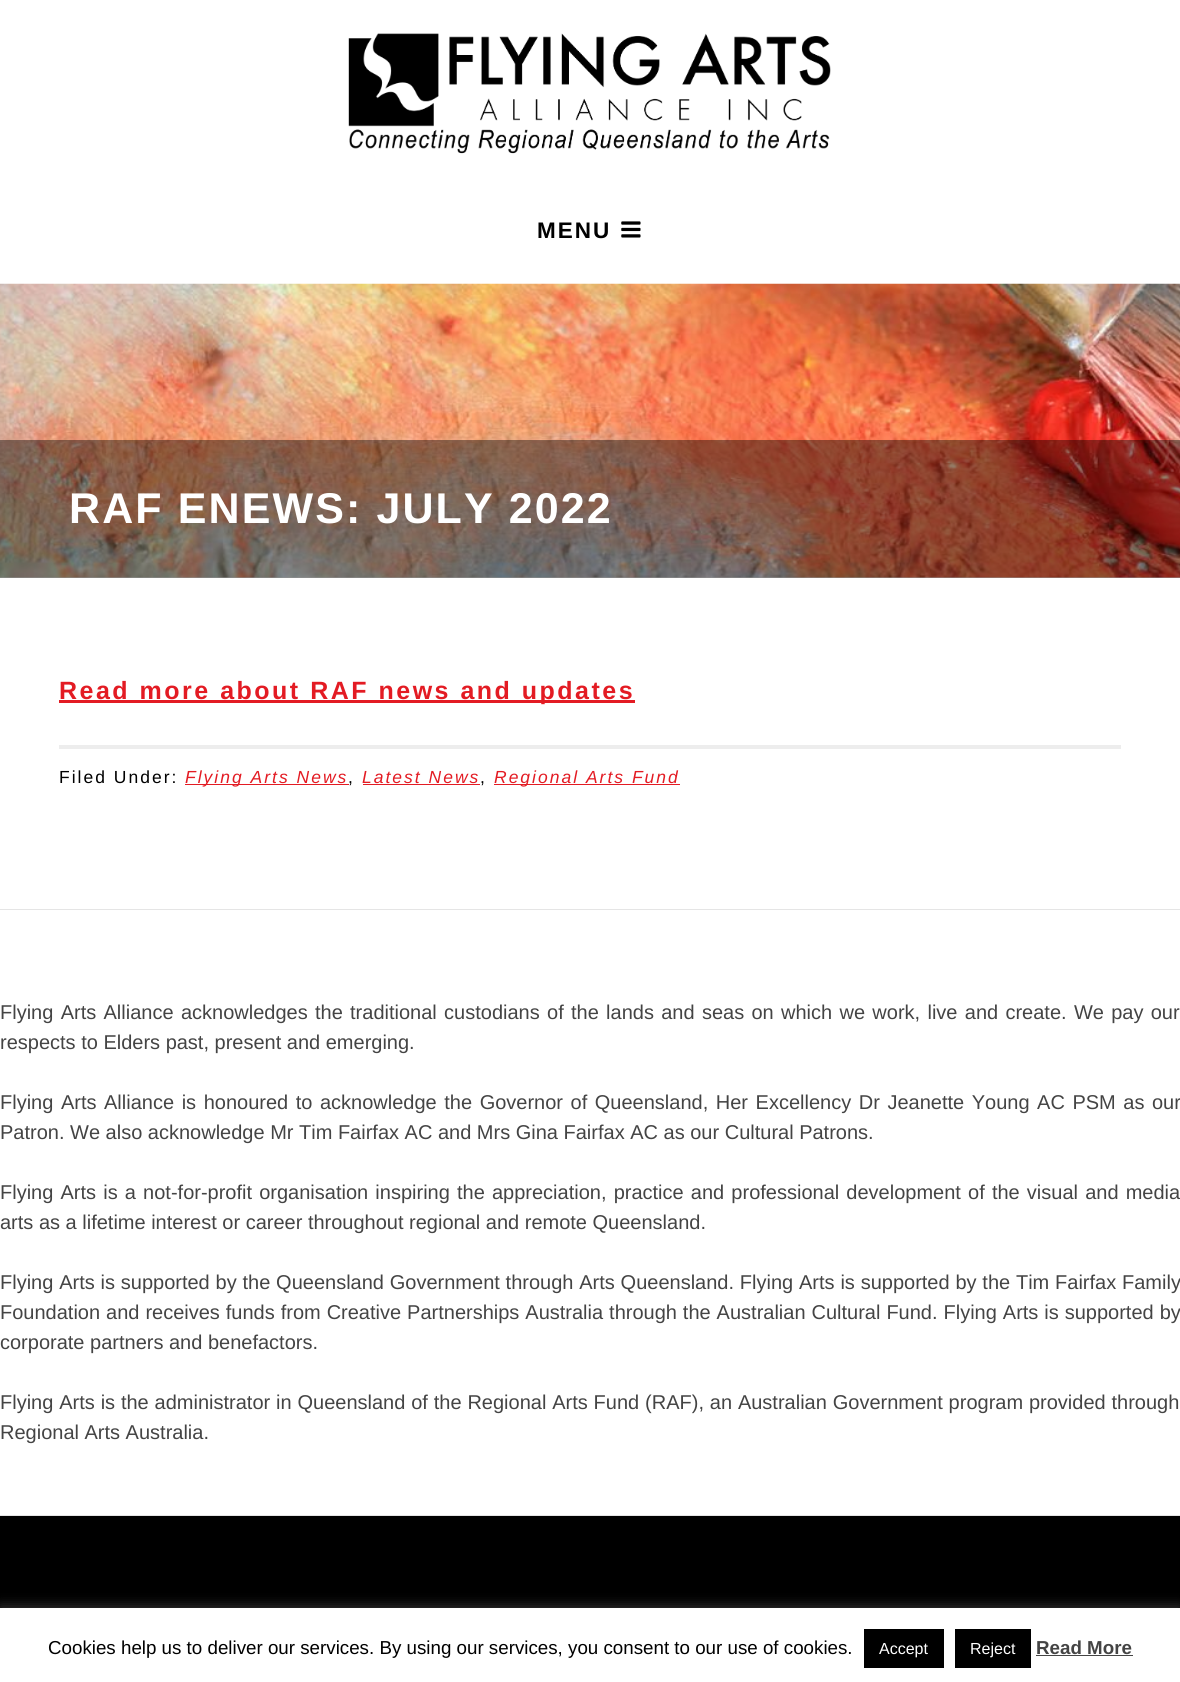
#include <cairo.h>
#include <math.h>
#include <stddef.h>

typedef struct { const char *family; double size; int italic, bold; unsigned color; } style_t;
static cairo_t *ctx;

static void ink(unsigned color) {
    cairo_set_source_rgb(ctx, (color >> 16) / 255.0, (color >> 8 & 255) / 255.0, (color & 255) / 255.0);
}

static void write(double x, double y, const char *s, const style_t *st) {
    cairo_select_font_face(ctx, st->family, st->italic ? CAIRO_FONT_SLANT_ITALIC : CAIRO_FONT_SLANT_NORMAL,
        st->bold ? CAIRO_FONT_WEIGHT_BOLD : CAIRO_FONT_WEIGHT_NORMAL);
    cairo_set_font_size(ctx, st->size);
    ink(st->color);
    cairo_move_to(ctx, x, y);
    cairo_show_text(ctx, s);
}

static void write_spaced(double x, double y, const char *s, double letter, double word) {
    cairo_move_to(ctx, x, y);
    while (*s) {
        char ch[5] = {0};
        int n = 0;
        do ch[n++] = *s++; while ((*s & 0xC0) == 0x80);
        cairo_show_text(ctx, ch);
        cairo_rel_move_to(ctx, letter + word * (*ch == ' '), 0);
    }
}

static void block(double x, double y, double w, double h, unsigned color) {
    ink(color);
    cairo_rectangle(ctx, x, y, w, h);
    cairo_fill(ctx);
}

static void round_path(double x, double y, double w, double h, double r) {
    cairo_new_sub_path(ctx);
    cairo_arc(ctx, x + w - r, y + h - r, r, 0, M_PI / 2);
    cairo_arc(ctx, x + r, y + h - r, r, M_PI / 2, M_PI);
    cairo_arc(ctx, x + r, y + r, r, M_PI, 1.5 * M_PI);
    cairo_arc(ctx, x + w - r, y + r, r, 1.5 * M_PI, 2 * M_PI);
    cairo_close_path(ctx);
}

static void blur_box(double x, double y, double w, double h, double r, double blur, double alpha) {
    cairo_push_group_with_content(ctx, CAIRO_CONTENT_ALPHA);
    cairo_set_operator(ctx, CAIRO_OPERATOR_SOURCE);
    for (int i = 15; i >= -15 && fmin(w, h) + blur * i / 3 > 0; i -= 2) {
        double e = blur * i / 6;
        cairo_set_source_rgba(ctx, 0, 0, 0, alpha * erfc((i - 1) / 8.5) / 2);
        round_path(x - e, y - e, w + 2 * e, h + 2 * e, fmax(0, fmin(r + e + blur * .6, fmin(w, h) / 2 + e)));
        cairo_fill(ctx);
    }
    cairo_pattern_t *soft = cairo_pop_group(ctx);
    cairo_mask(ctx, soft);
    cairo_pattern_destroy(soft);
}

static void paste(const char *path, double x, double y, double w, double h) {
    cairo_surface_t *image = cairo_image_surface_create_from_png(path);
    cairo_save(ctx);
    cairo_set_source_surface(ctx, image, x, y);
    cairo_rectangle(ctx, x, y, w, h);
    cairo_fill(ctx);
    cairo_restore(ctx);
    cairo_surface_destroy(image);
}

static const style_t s1 = {"Liberation Sans", 20, 0, 0, 0x444444};
static const style_t s2 = {"Liberation Sans", 18.75, 0, 0, 0x000000};
static const style_t s3 = {"Liberation Sans", 16, 0, 0, 0xffffff};
static const style_t s4 = {"Liberation Sans", 18.75, 0, 1, 0x444444};

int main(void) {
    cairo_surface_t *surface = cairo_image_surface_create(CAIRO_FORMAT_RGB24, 1180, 1682);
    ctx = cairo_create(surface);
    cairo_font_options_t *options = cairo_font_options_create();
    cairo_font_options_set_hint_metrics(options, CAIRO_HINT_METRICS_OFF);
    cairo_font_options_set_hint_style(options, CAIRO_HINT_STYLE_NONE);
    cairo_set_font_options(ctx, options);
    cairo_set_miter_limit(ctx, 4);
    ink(0xffffff);
    cairo_paint(ctx);
    paste("pic1.png", 348, 33, 483, 121);
    cairo_select_font_face(ctx, "Liberation Sans", CAIRO_FONT_SLANT_NORMAL, CAIRO_FONT_WEIGHT_BOLD);
    cairo_set_font_size(ctx, 22.5);
    ink(0x000000);
    write_spaced(537, 238, "MENU", 2, 0);
    paste("pic2.png", 621, 221, 20, 17);
    paste("pic3.png", 0, 283, 1180, 295);
    cairo_set_source_rgba(ctx, 0, 0, 0, 0.42);
    cairo_rectangle(ctx, 0, 440, 1180, 138);
    cairo_fill(ctx);
    cairo_set_font_size(ctx, 43);
    ink(0xffffff);
    write_spaced(69, 523, "RAF ENEWS: JULY 2022", 2.1, 0);
    block(59, 700, 576, 3, 0xe31b23);
    cairo_set_font_size(ctx, 25);
    write_spaced(59, 699, "Read more about RAF news and updates", 2.5, 0);
    block(59, 745, 1062, 4, 0xededed);
    cairo_select_font_face(ctx, "Liberation Sans", CAIRO_FONT_SLANT_NORMAL, CAIRO_FONT_WEIGHT_NORMAL);
    cairo_set_font_size(ctx, 17.5);
    ink(0x000000);
    write_spaced(59, 783, "Filed Under:", 2, 0);
    block(185, 784, 164, 1, 0xe31b23);
    cairo_select_font_face(ctx, "Liberation Sans", CAIRO_FONT_SLANT_ITALIC, CAIRO_FONT_WEIGHT_NORMAL);
    write_spaced(185, 783, "Flying Arts News", 2, 0);
    cairo_select_font_face(ctx, "Liberation Sans", CAIRO_FONT_SLANT_NORMAL, CAIRO_FONT_WEIGHT_NORMAL);
    ink(0x000000);
    write_spaced(348, 783, ",", 2, 0);
    cairo_select_font_face(ctx, "Liberation Sans", CAIRO_FONT_SLANT_ITALIC, CAIRO_FONT_WEIGHT_NORMAL);
    ink(0xe31b23);
    write_spaced(362, 783, "Latest News", 2, 0);
    cairo_select_font_face(ctx, "Liberation Sans", CAIRO_FONT_SLANT_NORMAL, CAIRO_FONT_WEIGHT_NORMAL);
    ink(0x000000);
    write_spaced(480, 783, ",", 2, 0);
    block(363, 784, 117, 1, 0xe31b23);
    block(494, 784, 186, 1, 0xe31b23);
    cairo_select_font_face(ctx, "Liberation Sans", CAIRO_FONT_SLANT_ITALIC, CAIRO_FONT_WEIGHT_NORMAL);
    write_spaced(494, 783, "Regional Arts Fund", 2, 0);
    block(0, 909, 1180, 1, 0xe5e5e5);
    block(0, 1515, 1180, 1, 0xe5e5e5);
    cairo_select_font_face(ctx, "Liberation Sans", CAIRO_FONT_SLANT_NORMAL, CAIRO_FONT_WEIGHT_NORMAL);
    cairo_set_font_size(ctx, 20);
    ink(0x444444);
    write_spaced(0, 1019, "Flying Arts Alliance acknowledges the traditional custodians of the lands and seas on which we work, live and create. We pay our", 0, 1.75);
    write(0, 1049, "respects to Elders past, present and emerging.", &s1);
    write_spaced(0, 1109, "Flying Arts Alliance is honoured to acknowledge the Governor of Queensland, Her Excellency Dr Jeanette Young AC PSM as our", 0, 2);
    write(0, 1139, "Patron. We also acknowledge Mr Tim Fairfax AC and Mrs Gina Fairfax AC as our Cultural Patrons.", &s1);
    write_spaced(0, 1199, "Flying Arts is a not-for-profit organisation inspiring the appreciation, practice and professional development of the visual and media", 0, 1.6);
    write(0, 1229, "arts as a lifetime interest or career throughout regional and remote Queensland.", &s1);
    write_spaced(0, 1289, "Flying Arts is supported by the Queensland Government through Arts Queensland. Flying Arts is supported by the Tim Fairfax Family", 0, 0.25);
    write_spaced(0, 1319, "Foundation and receives funds from Creative Partnerships Australia through the Australian Cultural Fund. Flying Arts is supported by", 0, 0.4);
    write(0, 1349, "corporate partners and benefactors.", &s1);
    write_spaced(0, 1409, "Flying Arts is the administrator in Queensland of the Regional Arts Fund (RAF), an Australian Government program provided through", 0, 0.3);
    write(0, 1439, "Regional Arts Australia.", &s1);
    block(0, 1516, 1180, 92, 0x000000);
    ink(0xacabab);
    blur_box(0, 1606, 1180, 75, 0, 6, 0.3);
    block(0, 1608, 1180, 74, 0xffffff);
    write(48, 1654, "Cookies help us to deliver our services. By using our services, you consent to our use of cookies.", &s2);
    block(864, 1629, 80, 39, 0x000000);
    write(879, 1654, "Accept", &s3);
    block(955, 1629, 76, 39, 0x000000);
    write(970, 1654, "Reject", &s3);
    write(1036, 1654, "Read More", &s4);
    block(1036, 1655, 97, 1, 0x444444);
    cairo_surface_write_to_png(surface, "screenshot.png");
    cairo_font_options_destroy(options);
    cairo_destroy(ctx);
    cairo_surface_destroy(surface);
    return 0;
}
